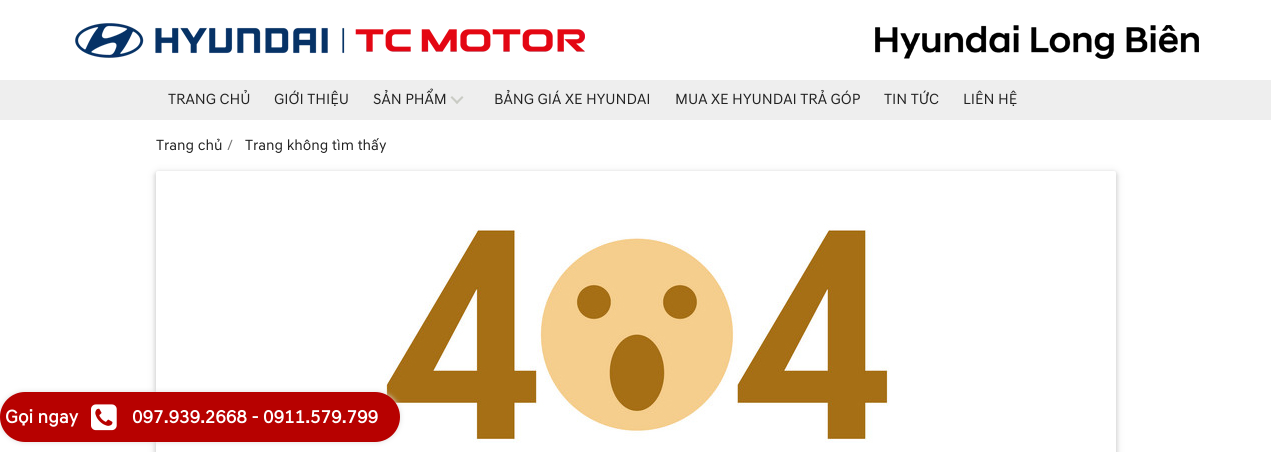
#include <cairo.h>
#include <math.h>
#include <stddef.h>

typedef struct { const char *family; double size; int italic, bold; unsigned color; } style_t;
static cairo_t *ctx;

static void ink(unsigned color) {
    cairo_set_source_rgb(ctx, (color >> 16) / 255.0, (color >> 8 & 255) / 255.0, (color & 255) / 255.0);
}

static void write(double x, double y, const char *s, const style_t *st) {
    cairo_select_font_face(ctx, st->family, st->italic ? CAIRO_FONT_SLANT_ITALIC : CAIRO_FONT_SLANT_NORMAL,
        st->bold ? CAIRO_FONT_WEIGHT_BOLD : CAIRO_FONT_WEIGHT_NORMAL);
    cairo_set_font_size(ctx, st->size);
    ink(st->color);
    cairo_move_to(ctx, x, y);
    cairo_show_text(ctx, s);
}

static void block(double x, double y, double w, double h, unsigned color) {
    ink(color);
    cairo_rectangle(ctx, x, y, w, h);
    cairo_fill(ctx);
}

static void round_path(double x, double y, double w, double h, double r) {
    cairo_new_sub_path(ctx);
    cairo_arc(ctx, x + w - r, y + h - r, r, 0, M_PI / 2);
    cairo_arc(ctx, x + r, y + h - r, r, M_PI / 2, M_PI);
    cairo_arc(ctx, x + r, y + r, r, M_PI, 1.5 * M_PI);
    cairo_arc(ctx, x + w - r, y + r, r, 1.5 * M_PI, 2 * M_PI);
    cairo_close_path(ctx);
}

static void blur_box(double x, double y, double w, double h, double r, double blur, double alpha) {
    cairo_push_group_with_content(ctx, CAIRO_CONTENT_ALPHA);
    cairo_set_operator(ctx, CAIRO_OPERATOR_SOURCE);
    for (int i = 15; i >= -15 && fmin(w, h) + blur * i / 3 > 0; i -= 2) {
        double e = blur * i / 6;
        cairo_set_source_rgba(ctx, 0, 0, 0, alpha * erfc((i - 1) / 8.5) / 2);
        round_path(x - e, y - e, w + 2 * e, h + 2 * e, fmax(0, fmin(r + e + blur * .6, fmin(w, h) / 2 + e)));
        cairo_fill(ctx);
    }
    cairo_pattern_t *soft = cairo_pop_group(ctx);
    cairo_mask(ctx, soft);
    cairo_pattern_destroy(soft);
}

static void paste(const char *path, double x, double y, double w, double h) {
    cairo_surface_t *image = cairo_image_surface_create_from_png(path);
    cairo_save(ctx);
    cairo_set_source_surface(ctx, image, x, y);
    cairo_rectangle(ctx, x, y, w, h);
    cairo_fill(ctx);
    cairo_restore(ctx);
    cairo_surface_destroy(image);
}

static const style_t s1 = {"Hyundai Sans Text", 15, 0, 0, 0x222222};
static const style_t s2 = {"Hyundai Sans Text", 15, 0, 0, 0x777777};
static const style_t s3 = {"Hyundai Sans Text", 18.75, 0, 1, 0xffffff};

int main(void) {
    cairo_surface_t *surface = cairo_image_surface_create(CAIRO_FORMAT_RGB24, 1271, 452);
    ctx = cairo_create(surface);
    cairo_font_options_t *options = cairo_font_options_create();
    cairo_font_options_set_hint_metrics(options, CAIRO_HINT_METRICS_OFF);
    cairo_font_options_set_hint_style(options, CAIRO_HINT_STYLE_NONE);
    cairo_set_font_options(ctx, options);
    cairo_set_miter_limit(ctx, 4);
    ink(0xffffff);
    cairo_paint(ctx);
    paste("pic1.png", 75, 23, 510, 35);
    paste("pic2.png", 875, 25, 324, 34);
    block(0, 80, 1271, 40, 0xeeeeee);
    write(168, 104, "TRANG CHỦ", &s1);
    write(274, 104, "GIỚI THIỆU", &s1);
    write(373, 104, "SẢN PHẨM", &s1);
    ink(0xc9cbc4);
    cairo_new_path(ctx);
    cairo_move_to(ctx, 452, 96);
    cairo_line_to(ctx, 458.5, 102.5);
    cairo_line_to(ctx, 457, 104);
    cairo_line_to(ctx, 450.5, 97.5);
    cairo_close_path(ctx);
    cairo_fill(ctx);
    cairo_new_path(ctx);
    cairo_move_to(ctx, 455.5, 102.5);
    cairo_line_to(ctx, 462, 96);
    cairo_line_to(ctx, 463.5, 97.5);
    cairo_line_to(ctx, 457, 104);
    cairo_close_path(ctx);
    cairo_fill(ctx);
    write(494, 104, "BẢNG GIÁ XE HYUNDAI", &s1);
    write(675, 104, "MUA XE HYUNDAI TRẢ GÓP", &s1);
    write(884, 104, "TIN TỨC", &s1);
    write(963, 104, "LIÊN HỆ", &s1);
    write(156, 150, "Trang chủ", &s1);
    write(227, 150, "/", &s2);
    write(245, 150, "Trang không tìm thấy", &s1);
    ink(0x000000);
    blur_box(156, 173, 960, 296, 2, 5, 0.12);
    blur_box(156, 173, 960, 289, 2, 2.5, 0.16);
    ink(0xffffff);
    round_path(156, 171, 960, 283, 2);
    cairo_fill(ctx);
    paste("pic3.png", 384, 223, 506, 220);
    ink(0xdddddd);
    blur_box(0, 392, 400, 50, 25, 2.5, 1);
    ink(0xb70100);
    round_path(0, 392, 400, 50, 25);
    cairo_fill(ctx);
    write(5, 423, "Gọi ngay", &s3);
    paste("pic4.png", 91, 404, 26, 27);
    write(132, 423, "097.939.2668 - 0911.579.799", &s3);
    cairo_surface_write_to_png(surface, "screenshot.png");
    cairo_font_options_destroy(options);
    cairo_destroy(ctx);
    cairo_surface_destroy(surface);
    return 0;
}
